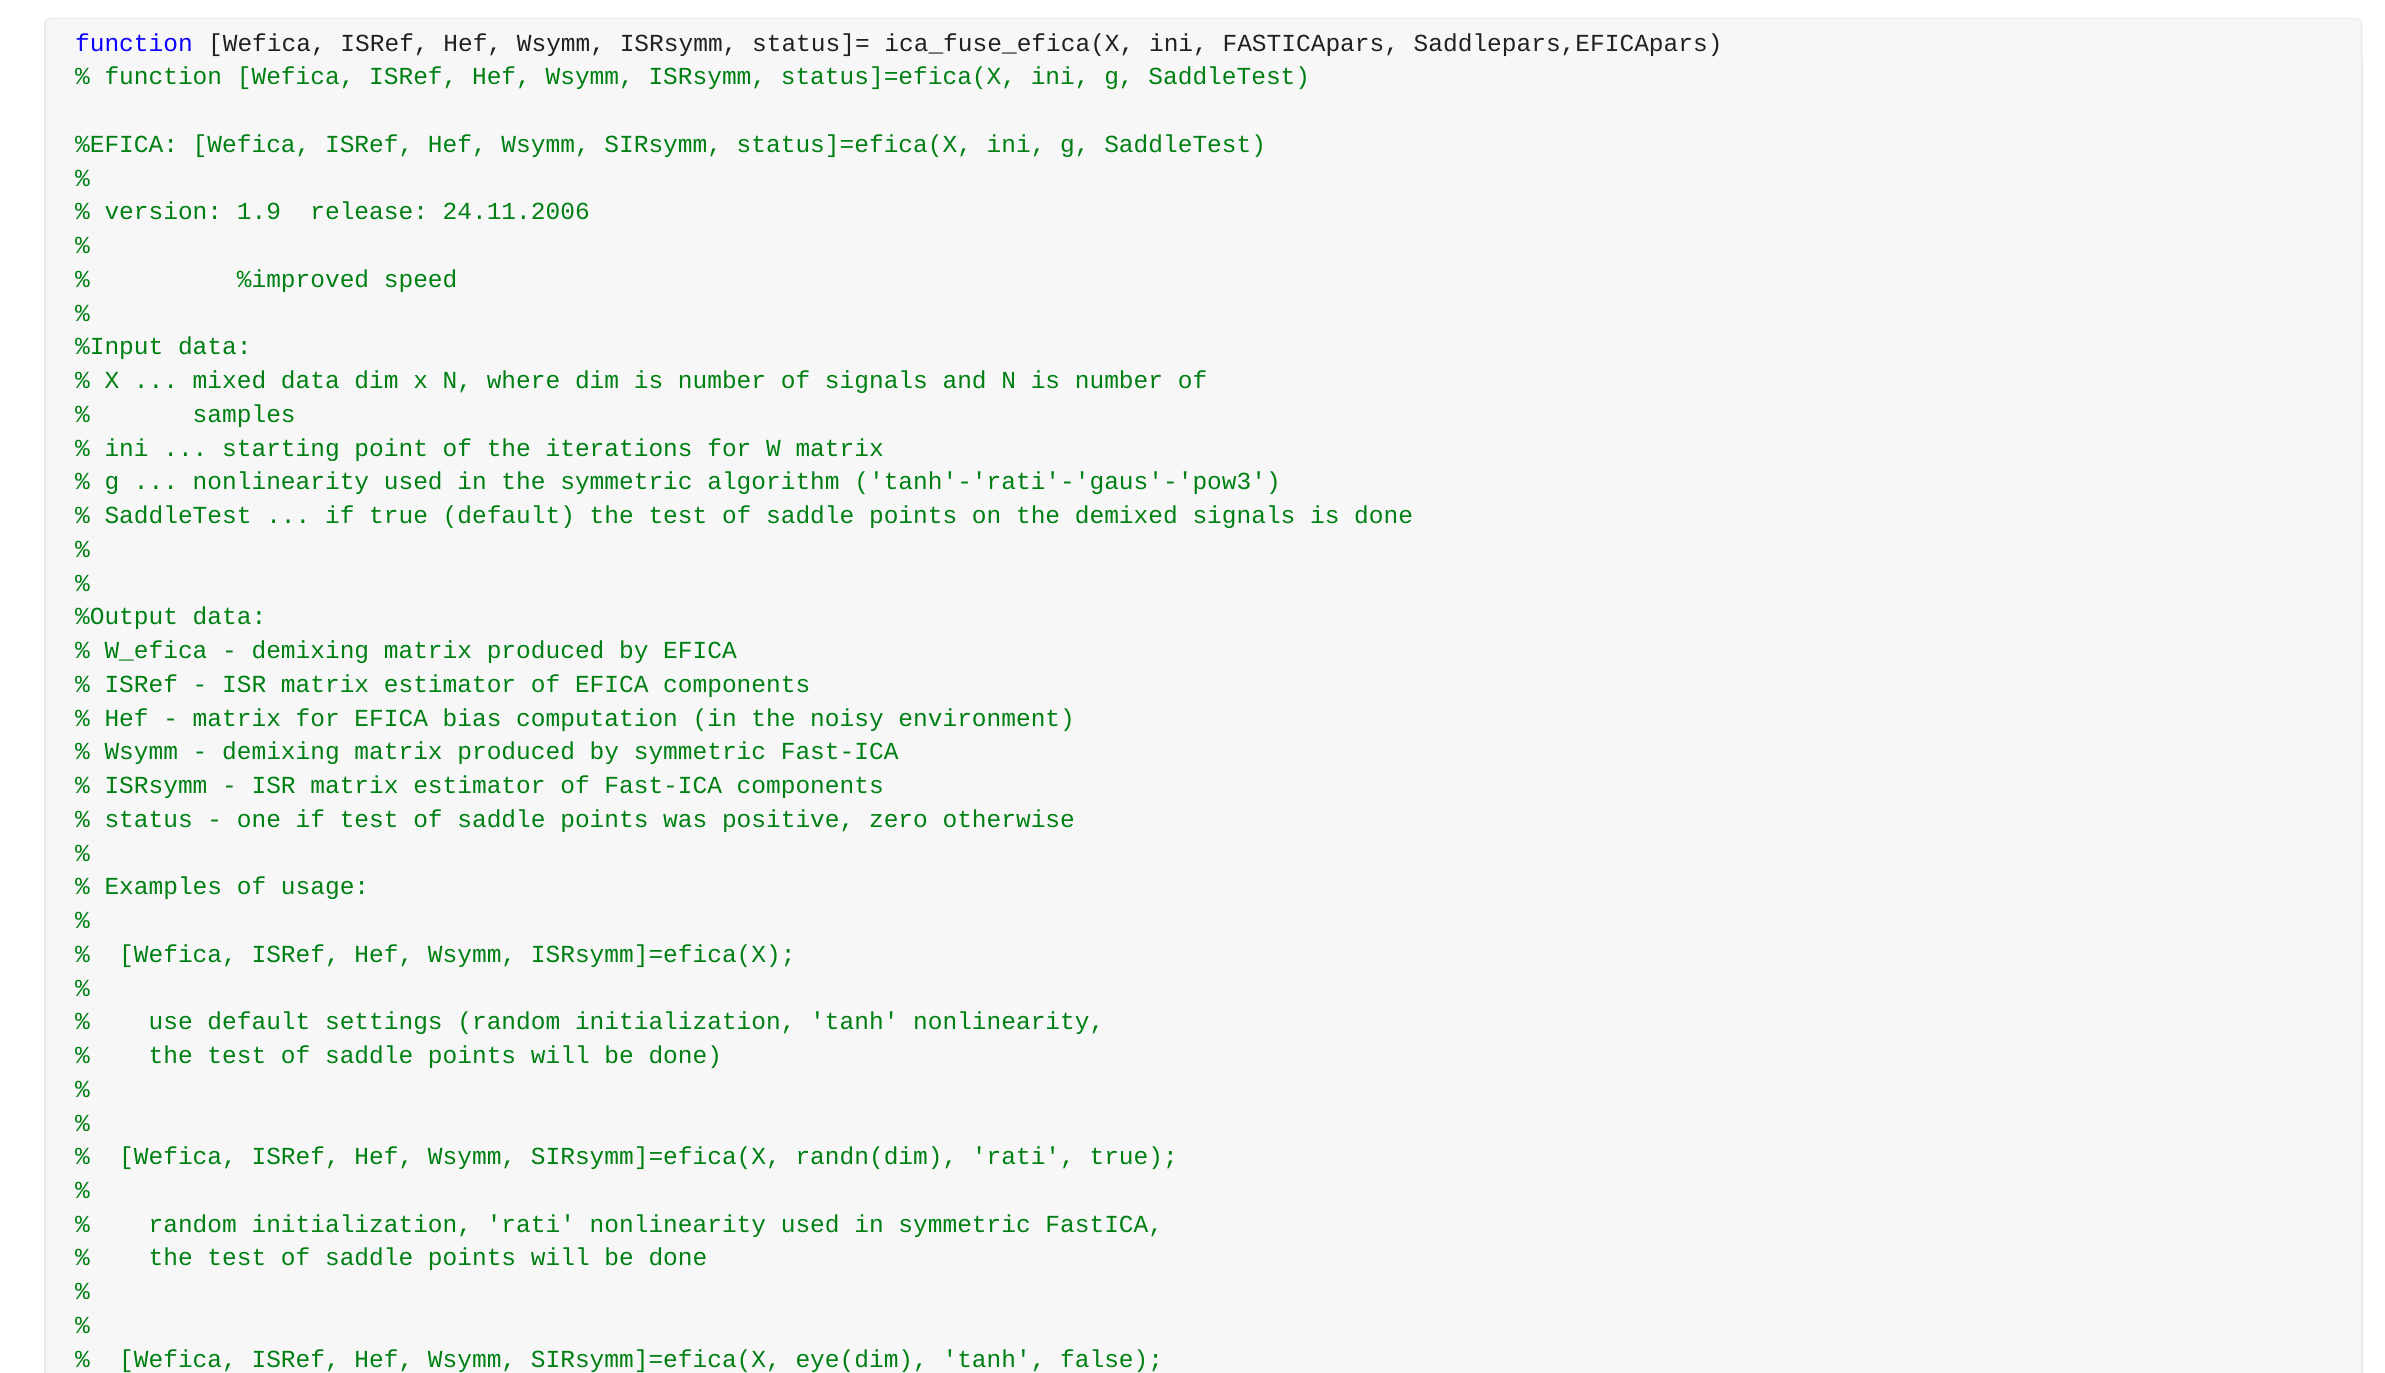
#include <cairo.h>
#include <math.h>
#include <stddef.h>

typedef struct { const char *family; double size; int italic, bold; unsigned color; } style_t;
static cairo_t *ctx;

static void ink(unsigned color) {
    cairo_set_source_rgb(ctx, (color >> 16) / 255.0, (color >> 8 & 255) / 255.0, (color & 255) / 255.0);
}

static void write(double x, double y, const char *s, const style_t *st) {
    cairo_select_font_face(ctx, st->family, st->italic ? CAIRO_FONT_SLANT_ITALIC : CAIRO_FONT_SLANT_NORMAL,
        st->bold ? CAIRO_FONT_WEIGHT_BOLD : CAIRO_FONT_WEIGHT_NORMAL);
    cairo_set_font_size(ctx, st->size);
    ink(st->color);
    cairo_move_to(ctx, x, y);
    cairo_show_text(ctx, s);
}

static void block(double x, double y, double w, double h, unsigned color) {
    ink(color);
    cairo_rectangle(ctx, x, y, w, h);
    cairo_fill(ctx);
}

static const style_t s1 = {"Liberation Mono", 24.5, 0, 0, 0x0e00ff};
static const style_t s2 = {"Liberation Mono", 24.5, 0, 0, 0x212121};
static const style_t s3 = {"Liberation Mono", 24.5, 0, 0, 0x008013};

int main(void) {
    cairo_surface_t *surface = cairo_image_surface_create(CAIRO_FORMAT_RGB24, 2385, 1373);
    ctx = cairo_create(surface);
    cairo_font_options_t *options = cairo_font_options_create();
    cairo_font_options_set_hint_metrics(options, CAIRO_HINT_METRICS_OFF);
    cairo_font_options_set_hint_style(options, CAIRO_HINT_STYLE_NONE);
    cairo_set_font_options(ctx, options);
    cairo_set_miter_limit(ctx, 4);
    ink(0xffffff);
    cairo_paint(ctx);
    ink(0xf7f7f7);
    cairo_new_path(ctx);
    cairo_move_to(ctx, 51, 18);
    cairo_line_to(ctx, 2356, 18);
    cairo_curve_to(ctx, 2360, 18, 2363, 21, 2363, 25);
    cairo_line_to(ctx, 2363, 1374);
    cairo_line_to(ctx, 44, 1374);
    cairo_line_to(ctx, 44, 25);
    cairo_curve_to(ctx, 44, 21, 47, 18, 51, 18);
    cairo_close_path(ctx);
    cairo_fill(ctx);
    ink(0xe9e9e9);
    cairo_set_fill_rule(ctx, CAIRO_FILL_RULE_EVEN_ODD);
    cairo_new_path(ctx);
    cairo_move_to(ctx, 51, 18);
    cairo_line_to(ctx, 2356, 18);
    cairo_curve_to(ctx, 2359, 18, 2362, 21, 2362, 24);
    cairo_line_to(ctx, 2362, 61);
    cairo_line_to(ctx, 44, 61);
    cairo_line_to(ctx, 44, 24);
    cairo_curve_to(ctx, 44, 21, 47, 18, 51, 18);
    cairo_close_path(ctx);
    cairo_move_to(ctx, 51, 19);
    cairo_line_to(ctx, 2356, 19);
    cairo_curve_to(ctx, 2358, 19, 2361, 22, 2361, 24);
    cairo_line_to(ctx, 2361, 61);
    cairo_line_to(ctx, 46, 61);
    cairo_line_to(ctx, 46, 24);
    cairo_curve_to(ctx, 46, 22, 48, 19, 51, 19);
    cairo_close_path(ctx);
    cairo_fill(ctx);
    write(75, 51, "function", &s1);
    write(208, 51, "[Wefica, ISRef, Hef, Wsymm, ISRsymm, status]= ica_fuse_efica(X, ini, FASTICApars, Saddlepars,EFICApars)", &s2);
    block(2361, 61, 2, 1312, 0xe9e9e9);
    block(44, 61, 2, 1312, 0xe9e9e9);
    write(75, 84, "% function [Wefica, ISRef, Hef, Wsymm, ISRsymm, status]=efica(X, ini, g, SaddleTest)", &s3);
    write(75, 152, "%EFICA: [Wefica, ISRef, Hef, Wsymm, SIRsymm, status]=efica(X, ini, g, SaddleTest)", &s3);
    write(75, 186, "%", &s3);
    write(75, 219, "% version: 1.9  release: 24.11.2006", &s3);
    write(75, 253, "%", &s3);
    write(75, 287, "%          %improved speed", &s3);
    write(75, 321, "%", &s3);
    write(75, 354, "%Input data:", &s3);
    write(75, 388, "% X ... mixed data dim x N, where dim is number of signals and N is number of", &s3);
    write(75, 422, "%       samples", &s3);
    write(75, 456, "% ini ... starting point of the iterations for W matrix", &s3);
    write(75, 489, "% g ... nonlinearity used in the symmetric algorithm ('tanh'-'rati'-'gaus'-'pow3')", &s3);
    write(75, 523, "% SaddleTest ... if true (default) the test of saddle points on the demixed signals is done", &s3);
    write(75, 557, "%", &s3);
    write(75, 591, "%", &s3);
    write(75, 624, "%Output data:", &s3);
    write(75, 658, "% W_efica - demixing matrix produced by EFICA", &s3);
    write(75, 692, "% ISRef - ISR matrix estimator of EFICA components", &s3);
    write(75, 726, "% Hef - matrix for EFICA bias computation (in the noisy environment)", &s3);
    write(75, 759, "% Wsymm - demixing matrix produced by symmetric Fast-ICA", &s3);
    write(75, 793, "% ISRsymm - ISR matrix estimator of Fast-ICA components", &s3);
    write(75, 827, "% status - one if test of saddle points was positive, zero otherwise", &s3);
    write(75, 861, "%", &s3);
    write(75, 894, "% Examples of usage:", &s3);
    write(75, 928, "%", &s3);
    write(75, 962, "%  [Wefica, ISRef, Hef, Wsymm, ISRsymm]=efica(X);", &s3);
    write(75, 996, "%", &s3);
    write(75, 1029, "%    use default settings (random initialization, 'tanh' nonlinearity,", &s3);
    write(75, 1063, "%    the test of saddle points will be done)", &s3);
    write(75, 1097, "%", &s3);
    write(75, 1131, "%", &s3);
    write(75, 1164, "%  [Wefica, ISRef, Hef, Wsymm, SIRsymm]=efica(X, randn(dim), 'rati', true);", &s3);
    write(75, 1198, "%", &s3);
    write(75, 1232, "%    random initialization, 'rati' nonlinearity used in symmetric FastICA,", &s3);
    write(75, 1265, "%    the test of saddle points will be done", &s3);
    write(75, 1299, "%", &s3);
    write(75, 1333, "%", &s3);
    write(75, 1367, "%  [Wefica, ISRef, Hef, Wsymm, SIRsymm]=efica(X, eye(dim), 'tanh', false);", &s3);
    cairo_surface_write_to_png(surface, "screenshot.png");
    cairo_font_options_destroy(options);
    cairo_destroy(ctx);
    cairo_surface_destroy(surface);
    return 0;
}
